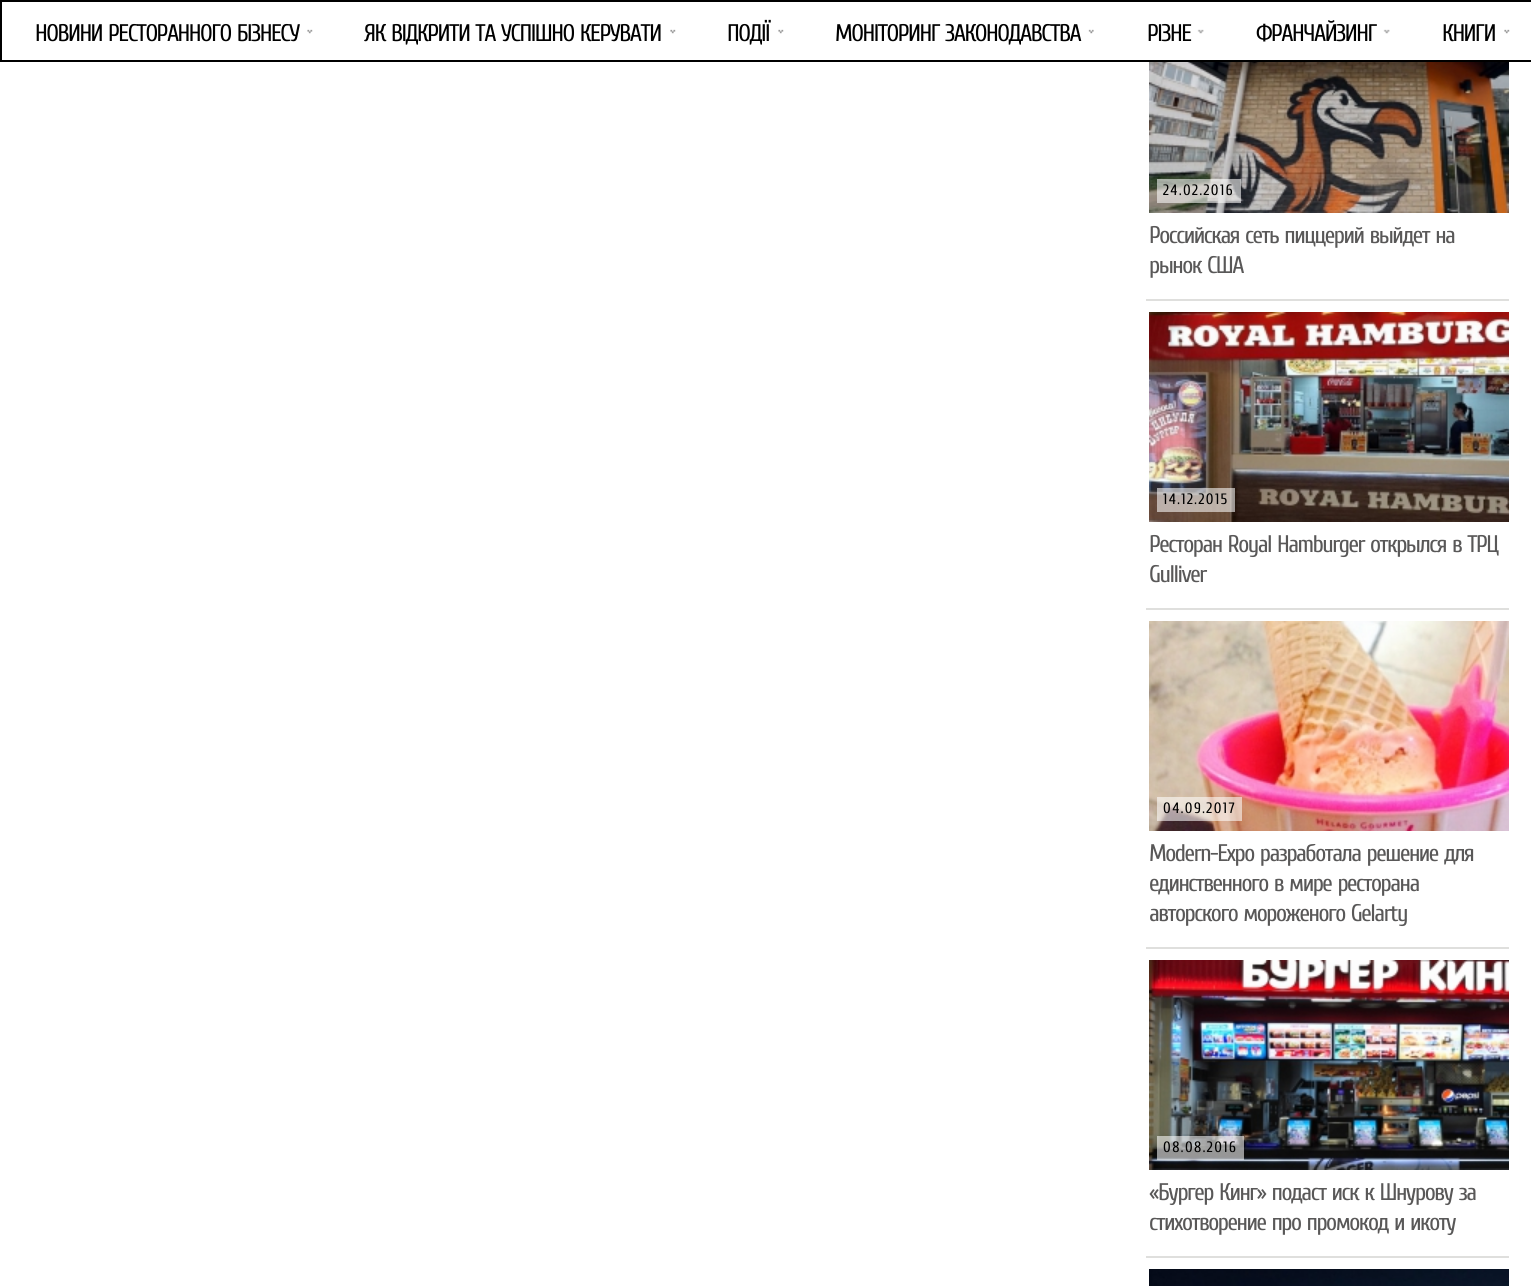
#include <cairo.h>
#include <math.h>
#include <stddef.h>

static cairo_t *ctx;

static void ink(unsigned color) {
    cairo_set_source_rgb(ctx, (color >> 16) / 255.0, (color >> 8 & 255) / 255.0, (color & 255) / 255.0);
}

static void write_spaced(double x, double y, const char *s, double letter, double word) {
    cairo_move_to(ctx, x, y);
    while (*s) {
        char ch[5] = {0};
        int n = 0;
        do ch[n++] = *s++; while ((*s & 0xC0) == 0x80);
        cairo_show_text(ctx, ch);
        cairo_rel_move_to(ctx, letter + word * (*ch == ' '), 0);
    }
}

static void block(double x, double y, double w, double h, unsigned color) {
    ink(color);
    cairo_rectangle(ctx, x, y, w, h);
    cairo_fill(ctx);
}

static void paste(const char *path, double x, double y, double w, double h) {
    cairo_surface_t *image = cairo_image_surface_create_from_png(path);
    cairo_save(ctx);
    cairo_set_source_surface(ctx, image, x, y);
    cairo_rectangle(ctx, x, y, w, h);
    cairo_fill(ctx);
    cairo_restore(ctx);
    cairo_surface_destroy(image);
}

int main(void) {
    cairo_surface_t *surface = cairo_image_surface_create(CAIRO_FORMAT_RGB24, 1531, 1286);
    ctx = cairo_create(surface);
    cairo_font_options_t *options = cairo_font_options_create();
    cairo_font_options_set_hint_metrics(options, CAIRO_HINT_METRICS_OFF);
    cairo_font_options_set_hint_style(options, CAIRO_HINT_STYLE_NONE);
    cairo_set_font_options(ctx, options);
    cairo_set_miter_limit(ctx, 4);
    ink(0xffffff);
    cairo_paint(ctx);
    cairo_rectangle(ctx, 1, 1, 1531, 60);
    ink(0x000000);
    cairo_stroke(ctx);
    cairo_select_font_face(ctx, "Cuprum", CAIRO_FONT_SLANT_NORMAL, CAIRO_FONT_WEIGHT_NORMAL);
    cairo_set_font_size(ctx, 24);
    write_spaced(35, 41, "НОВИНИ РЕСТОРАННОГО БІЗНЕСУ", -1.5, 1.5);
    paste("pic1.png", 307, 29, 6, 5);
    write_spaced(364, 41, "ЯК ВІДКРИТИ ТА УСПІШНО КЕРУВАТИ", -1.5, 1.5);
    paste("pic1.png", 670, 29, 6, 5);
    write_spaced(727, 41, "ПОДІЇ", -1.5, 0);
    paste("pic1.png", 778, 29, 6, 5);
    write_spaced(835, 41, "МОНІТОРИНГ ЗАКОНОДАВСТВА", -1.5, 1.5);
    paste("pic2.png", 1088, 29, 6, 5);
    write_spaced(1147, 41, "РІЗНЕ", -1.5, 0);
    paste("pic3.png", 1197, 29, 7, 5);
    write_spaced(1256, 41, "ФРАНЧАЙЗИНГ", -1.5, 0);
    paste("pic3.png", 1383, 29, 7, 5);
    write_spaced(1442, 41, "КНИГИ", -1.5, 0);
    paste("pic1.png", 1504, 29, 6, 5);
    block(1146, 299, 363, 2, 0xdfdfdd);
    paste("pic4.png", 1149, 62, 360, 151);
    cairo_set_source_rgba(ctx, 1, 1, 1, 0.57);
    cairo_rectangle(ctx, 1157, 179, 84, 24);
    cairo_fill(ctx);
    cairo_set_font_size(ctx, 15);
    ink(0x000000);
    write_spaced(1163, 195, "24.02.2016", 1.5, 0);
    cairo_set_font_size(ctx, 24);
    ink(0x595858);
    write_spaced(1149, 243, "Российская сеть пиццерий выйдет на", -1.5, 1.5);
    write_spaced(1149, 273, "рынок США", -1.5, 1.5);
    block(1146, 608, 363, 2, 0xdfdfdd);
    paste("pic5.png", 1149, 312, 360, 210);
    cairo_set_source_rgba(ctx, 1, 1, 1, 0.57);
    cairo_rectangle(ctx, 1157, 488, 78, 24);
    cairo_fill(ctx);
    cairo_set_font_size(ctx, 15);
    ink(0x000000);
    write_spaced(1163, 504, "14.12.2015", 1.5, 0);
    cairo_set_font_size(ctx, 24);
    ink(0x595858);
    write_spaced(1149, 552, "Ресторан Royal Hamburger открылся в ТРЦ", -1.5, 1.5);
    write_spaced(1149, 582, "Gulliver", -1.5, 0);
    block(1146, 947, 363, 2, 0xdfdfdd);
    paste("pic6.png", 1149, 621, 360, 210);
    cairo_set_source_rgba(ctx, 1, 1, 1, 0.57);
    cairo_rectangle(ctx, 1157, 797, 85, 24);
    cairo_fill(ctx);
    cairo_set_font_size(ctx, 15);
    ink(0x000000);
    write_spaced(1163, 813, "04.09.2017", 1.5, 0);
    cairo_set_font_size(ctx, 24);
    ink(0x595858);
    write_spaced(1149, 861, "Modern-Expo разработала решение для", -1.5, 1.5);
    write_spaced(1149, 891, "единственного в мире ресторана", -1.5, 1.5);
    write_spaced(1149, 921, "авторского мороженого Gelarty", -1.5, 1.5);
    block(1146, 1256, 363, 2, 0xdfdfdd);
    paste("pic7.png", 1149, 960, 360, 210);
    cairo_set_source_rgba(ctx, 1, 1, 1, 0.57);
    cairo_rectangle(ctx, 1157, 1136, 87, 24);
    cairo_fill(ctx);
    cairo_set_font_size(ctx, 15);
    ink(0x000000);
    write_spaced(1163, 1152, "08.08.2016", 1.5, 0);
    cairo_set_font_size(ctx, 24);
    ink(0x595858);
    write_spaced(1149, 1200, "«Бургер Кинг» подаст иск к Шнурову за", -1.5, 1.5);
    write_spaced(1149, 1230, "стихотворение про промокод и икоту", -1.5, 1.5);
    paste("pic8.png", 1149, 1269, 360, 17);
    cairo_surface_write_to_png(surface, "screenshot.png");
    cairo_font_options_destroy(options);
    cairo_destroy(ctx);
    cairo_surface_destroy(surface);
    return 0;
}
